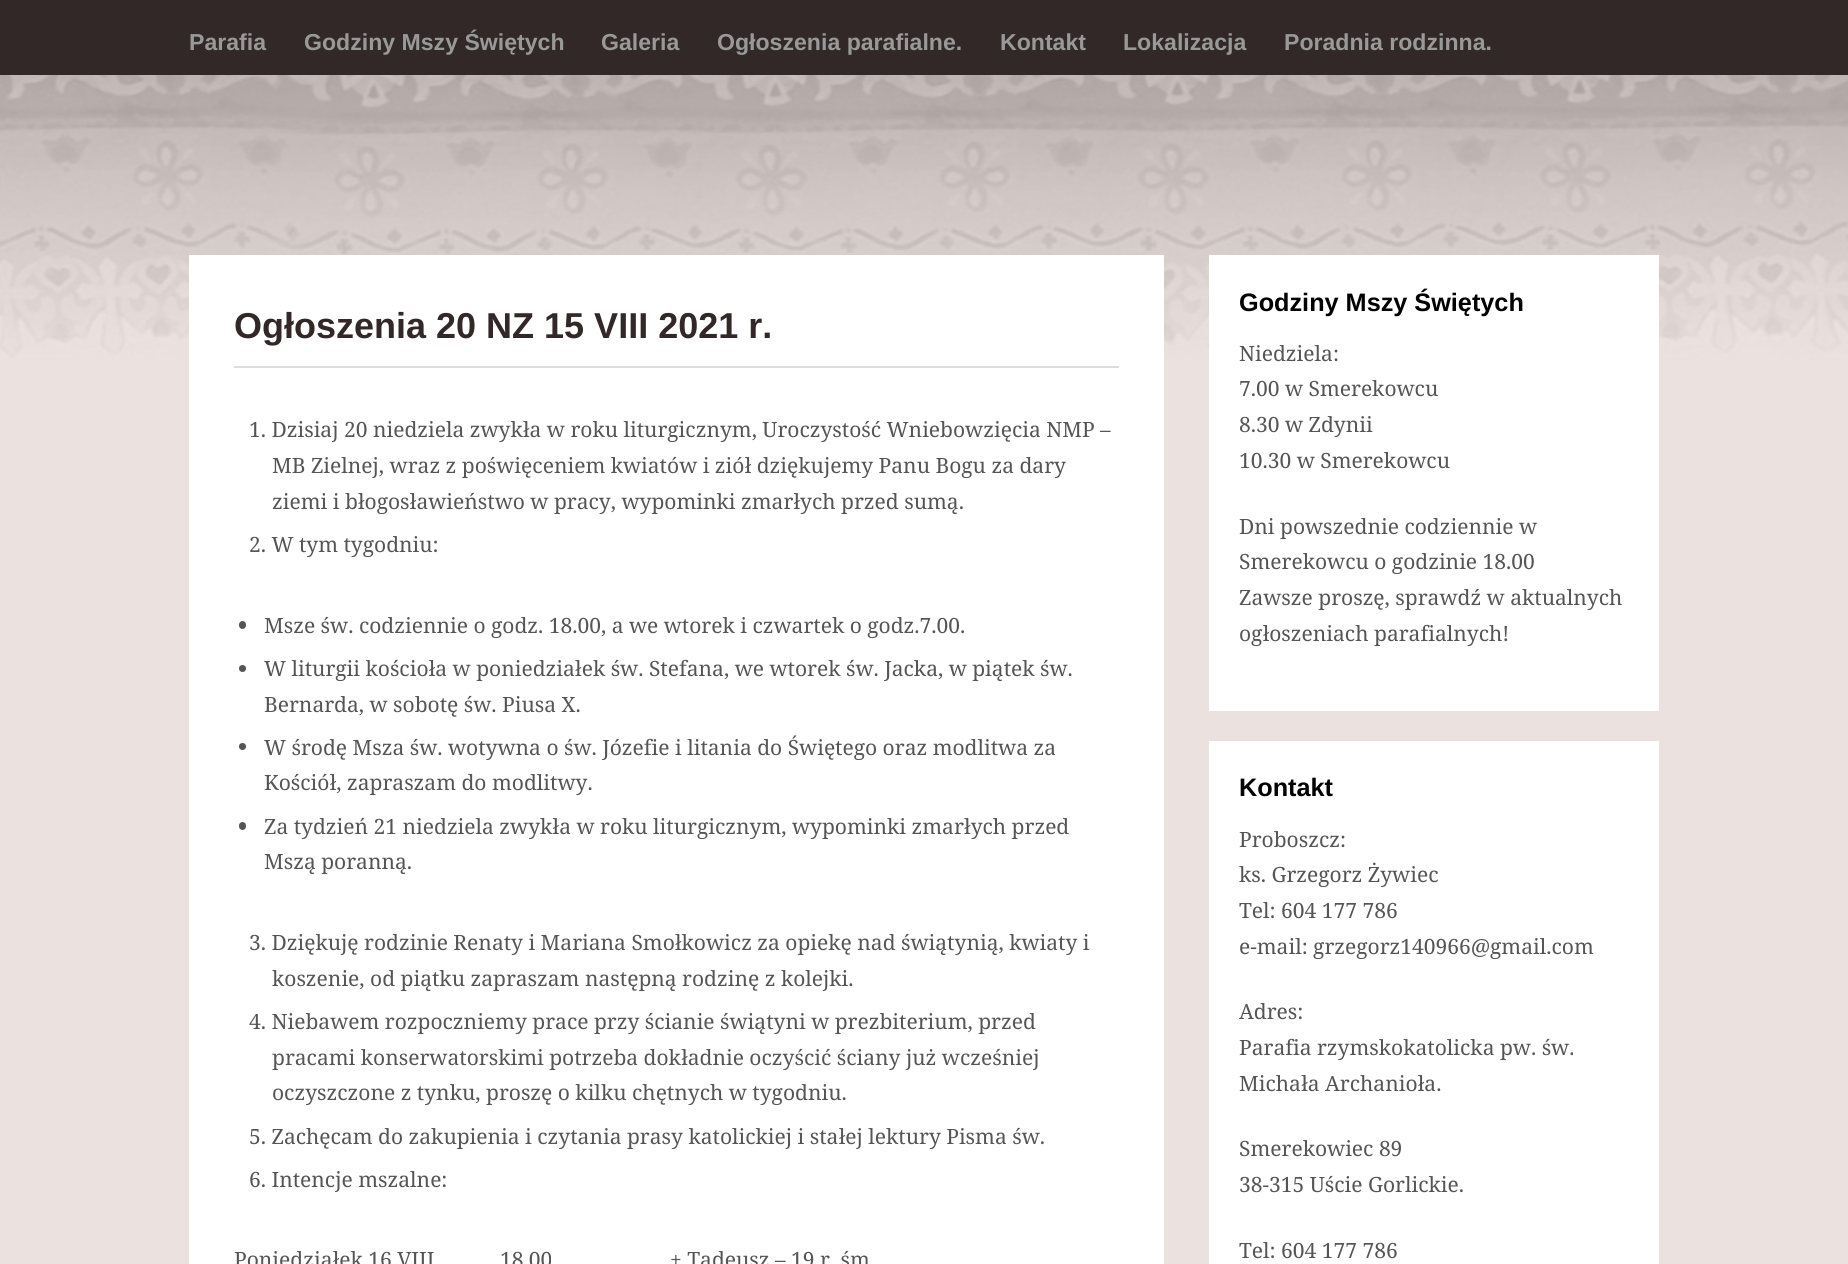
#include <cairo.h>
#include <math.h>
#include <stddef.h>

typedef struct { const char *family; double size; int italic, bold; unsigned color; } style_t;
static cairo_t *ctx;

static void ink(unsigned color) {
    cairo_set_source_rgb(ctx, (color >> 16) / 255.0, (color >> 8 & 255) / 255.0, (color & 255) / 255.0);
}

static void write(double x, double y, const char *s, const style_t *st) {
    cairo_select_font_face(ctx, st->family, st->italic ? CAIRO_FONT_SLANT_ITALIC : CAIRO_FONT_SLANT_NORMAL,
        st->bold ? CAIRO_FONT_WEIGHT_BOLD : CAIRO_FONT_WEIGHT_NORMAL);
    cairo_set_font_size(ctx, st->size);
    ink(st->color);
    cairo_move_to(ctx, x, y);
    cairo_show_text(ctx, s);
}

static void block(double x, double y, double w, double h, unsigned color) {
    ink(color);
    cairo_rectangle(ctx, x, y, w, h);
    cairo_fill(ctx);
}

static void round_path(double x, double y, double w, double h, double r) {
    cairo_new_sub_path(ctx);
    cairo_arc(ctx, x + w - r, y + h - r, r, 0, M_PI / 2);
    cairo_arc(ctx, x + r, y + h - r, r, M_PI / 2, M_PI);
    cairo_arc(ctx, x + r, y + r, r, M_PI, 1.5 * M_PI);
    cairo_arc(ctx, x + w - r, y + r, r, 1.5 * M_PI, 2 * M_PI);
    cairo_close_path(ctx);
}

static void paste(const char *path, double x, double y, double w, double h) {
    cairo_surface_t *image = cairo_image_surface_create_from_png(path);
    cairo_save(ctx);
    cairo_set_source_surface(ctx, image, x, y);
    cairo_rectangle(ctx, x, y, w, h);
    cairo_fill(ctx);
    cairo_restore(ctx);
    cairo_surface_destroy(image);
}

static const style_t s1 = {"Liberation Sans", 23.1, 0, 1, 0x999999};
static const style_t s2 = {"Liberation Sans", 36, 0, 1, 0x322828};
static const style_t s3 = {"Noto Serif", 21, 0, 0, 0x555555};
static const style_t s4 = {"Liberation Sans", 25.25, 0, 1, 0x000000};

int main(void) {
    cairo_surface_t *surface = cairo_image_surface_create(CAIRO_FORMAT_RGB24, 1848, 1264);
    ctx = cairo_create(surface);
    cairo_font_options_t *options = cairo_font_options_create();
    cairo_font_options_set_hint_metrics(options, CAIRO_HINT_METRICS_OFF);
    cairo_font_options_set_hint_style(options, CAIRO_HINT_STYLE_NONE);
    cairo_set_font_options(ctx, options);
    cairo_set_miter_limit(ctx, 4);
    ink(0xebe1df);
    cairo_paint(ctx);
    paste("pic1.png", 0, 75, 1848, 285);
    block(0, 0, 1848, 75, 0x322828);
    write(189, 50, "Parafia", &s1);
    write(304, 50, "Godziny Mszy Świętych", &s1);
    write(601, 50, "Galeria", &s1);
    write(717, 50, "Ogłoszenia parafialne.", &s1);
    write(1000, 50, "Kontakt", &s1);
    write(1123, 50, "Lokalizacja", &s1);
    write(1284, 50, "Poradnia rodzinna.", &s1);
    block(189, 255, 975, 1009, 0xffffff);
    block(234, 366, 885, 2, 0xdddddd);
    write(234, 338, "Ogłoszenia 20 NZ 15 VIII 2021 r.", &s2);
    write(249, 437, "1. Dzisiaj 20 niedziela zwykła w roku liturgicznym, Uroczystość Wniebowzięcia NMP –", &s3);
    write(272, 473, "MB Zielnej, wraz z poświęceniem kwiatów i ziół dziękujemy Panu Bogu za dary", &s3);
    write(272, 509, "ziemi i błogosławieństwo w pracy, wypominki zmarłych przed sumą.", &s3);
    write(249, 552, "2. W tym tygodniu:", &s3);
    round_path(239, 621, 7, 8, 3.5);
    cairo_fill(ctx);
    write(264, 633, "Msze św. codziennie o godz. 18.00, a we wtorek i czwartek o godz.7.00.", &s3);
    cairo_new_path(ctx);
    cairo_arc(ctx, 242.5, 668.5, 3.5, 0, 2 * M_PI);
    cairo_fill(ctx);
    write(264, 676, "W liturgii kościoła w poniedziałek św. Stefana, we wtorek św. Jacka, w piątek św.", &s3);
    write(264, 712, "Bernarda, w sobotę św. Piusa X.", &s3);
    cairo_new_path(ctx);
    cairo_arc(ctx, 242.5, 746.5, 3.5, 0, 2 * M_PI);
    cairo_fill(ctx);
    write(264, 755, "W środę Msza św. wotywna o św. Józefie i litania do Świętego oraz modlitwa za", &s3);
    write(264, 790, "Kościół, zapraszam do modlitwy.", &s3);
    round_path(239, 822, 7, 8, 3.5);
    cairo_fill(ctx);
    write(264, 834, "Za tydzień 21 niedziela zwykła w roku liturgicznym, wypominki zmarłych przed", &s3);
    write(264, 869, "Mszą poranną.", &s3);
    write(249, 950, "3. Dziękuję rodzinie Renaty i Mariana Smołkowicz za opiekę nad świątynią, kwiaty i", &s3);
    write(272, 986, "koszenie, od piątku zapraszam następną rodzinę z kolejki.", &s3);
    write(249, 1029, "4. Niebawem rozpoczniemy prace przy ścianie świątyni w prezbiterium, przed", &s3);
    write(272, 1065, "pracami konserwatorskimi potrzeba dokładnie oczyścić ściany już wcześniej", &s3);
    write(272, 1100, "oczyszczone z tynku, proszę o kilku chętnych w tygodniu.", &s3);
    write(249, 1144, "5. Zachęcam do zakupienia i czytania prasy katolickiej i stałej lektury Pisma św.", &s3);
    write(249, 1187, "6. Intencje mszalne:", &s3);
    write(234, 1267, "Poniedziałek 16 VIII", &s3);
    write(500, 1267, "18.00", &s3);
    write(670, 1267, "+ Tadeusz – 19 r. śm", &s3);
    block(1209, 255, 450, 456, 0xffffff);
    write(1239, 311, "Godziny Mszy Świętych", &s4);
    write(1239, 361, "Niedziela:", &s3);
    write(1239, 396, "7.00 w Smerekowcu", &s3);
    write(1239, 432, "8.30 w Zdynii", &s3);
    write(1239, 468, "10.30 w Smerekowcu", &s3);
    write(1239, 534, "Dni powszednie codziennie w", &s3);
    write(1239, 569, "Smerekowcu o godzinie 18.00", &s3);
    write(1239, 605, "Zawsze proszę, sprawdź w aktualnych", &s3);
    write(1239, 641, "ogłoszeniach parafialnych!", &s3);
    block(1209, 741, 450, 523, 0xffffff);
    write(1239, 796, "Kontakt", &s4);
    write(1239, 847, "Proboszcz:", &s3);
    write(1239, 882, "ks. Grzegorz Żywiec", &s3);
    write(1239, 918, "Tel: 604 177 786", &s3);
    write(1239, 954, "e-mail: grzegorz140966@gmail.com", &s3);
    write(1239, 1019, "Adres:", &s3);
    write(1239, 1055, "Parafia rzymskokatolicka pw. św.", &s3);
    write(1239, 1091, "Michała Archanioła.", &s3);
    write(1239, 1156, "Smerekowiec 89", &s3);
    write(1239, 1192, "38-315 Uście Gorlickie.", &s3);
    write(1239, 1258, "Tel: 604 177 786", &s3);
    cairo_surface_write_to_png(surface, "screenshot.png");
    cairo_font_options_destroy(options);
    cairo_destroy(ctx);
    cairo_surface_destroy(surface);
    return 0;
}
